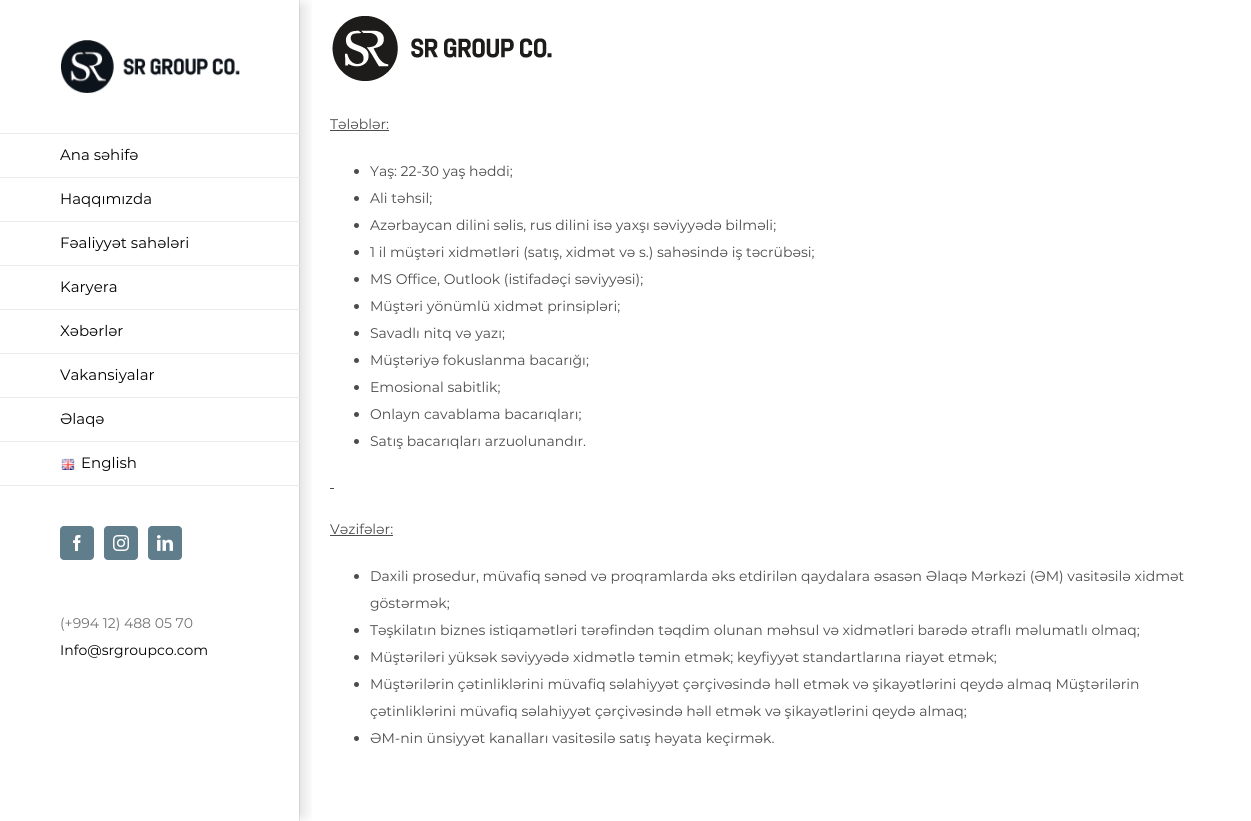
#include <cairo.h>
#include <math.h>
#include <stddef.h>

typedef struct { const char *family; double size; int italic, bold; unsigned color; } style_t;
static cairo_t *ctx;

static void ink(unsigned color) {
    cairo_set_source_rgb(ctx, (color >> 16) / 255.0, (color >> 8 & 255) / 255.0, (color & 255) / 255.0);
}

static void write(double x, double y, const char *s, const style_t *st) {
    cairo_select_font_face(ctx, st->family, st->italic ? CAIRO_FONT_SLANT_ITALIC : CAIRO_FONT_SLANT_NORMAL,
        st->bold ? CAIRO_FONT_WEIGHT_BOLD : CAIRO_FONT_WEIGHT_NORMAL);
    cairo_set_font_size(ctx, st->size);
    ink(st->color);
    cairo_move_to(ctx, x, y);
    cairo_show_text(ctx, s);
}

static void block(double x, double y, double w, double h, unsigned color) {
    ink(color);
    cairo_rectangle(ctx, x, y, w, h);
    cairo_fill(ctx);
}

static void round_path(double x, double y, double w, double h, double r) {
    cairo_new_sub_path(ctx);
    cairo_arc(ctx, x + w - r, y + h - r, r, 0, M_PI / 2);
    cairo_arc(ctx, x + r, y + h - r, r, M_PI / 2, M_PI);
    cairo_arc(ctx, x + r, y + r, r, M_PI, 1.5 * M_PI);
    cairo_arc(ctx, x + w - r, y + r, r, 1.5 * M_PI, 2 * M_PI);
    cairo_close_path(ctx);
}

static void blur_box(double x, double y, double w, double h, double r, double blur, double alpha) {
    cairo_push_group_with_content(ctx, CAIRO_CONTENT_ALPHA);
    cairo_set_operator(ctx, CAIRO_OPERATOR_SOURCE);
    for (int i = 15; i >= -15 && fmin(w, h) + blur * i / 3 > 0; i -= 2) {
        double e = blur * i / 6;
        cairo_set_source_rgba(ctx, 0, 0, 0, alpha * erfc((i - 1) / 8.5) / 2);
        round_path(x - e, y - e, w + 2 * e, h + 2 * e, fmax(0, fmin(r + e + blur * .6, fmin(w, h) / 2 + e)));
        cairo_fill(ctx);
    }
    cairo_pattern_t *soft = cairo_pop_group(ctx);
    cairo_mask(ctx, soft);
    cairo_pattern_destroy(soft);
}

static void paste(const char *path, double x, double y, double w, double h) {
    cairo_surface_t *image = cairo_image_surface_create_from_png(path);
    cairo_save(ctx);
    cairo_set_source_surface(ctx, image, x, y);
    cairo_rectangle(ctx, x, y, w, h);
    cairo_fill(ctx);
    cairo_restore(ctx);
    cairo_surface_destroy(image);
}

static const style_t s1 = {"Montserrat", 15, 0, 0, 0x000000};
static const style_t s2 = {"Montserrat", 14, 0, 0, 0x747474};
static const style_t s3 = {"Montserrat", 14, 0, 0, 0x000000};
static const style_t s4 = {"Montserrat", 14, 0, 0, 0x4c4c4c};

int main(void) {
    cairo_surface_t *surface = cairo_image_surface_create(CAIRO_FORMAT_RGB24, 1251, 821);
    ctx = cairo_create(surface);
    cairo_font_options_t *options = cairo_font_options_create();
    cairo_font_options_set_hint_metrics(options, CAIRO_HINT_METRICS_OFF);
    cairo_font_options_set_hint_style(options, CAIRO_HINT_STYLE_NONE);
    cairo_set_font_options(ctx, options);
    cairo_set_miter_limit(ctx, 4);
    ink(0xffffff);
    cairo_paint(ctx);
    paste("pic1.png", 61, 40, 179, 53);
    block(299, 0, 1, 821, 0xeaeaea);
    cairo_save(ctx);
    cairo_rectangle(ctx, 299, 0, 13, 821);
    cairo_clip(ctx);
    ink(0x000000);
    blur_box(289, 5, 15, 811, 0, 7.5, 0.14);
    cairo_restore(ctx);
    block(0, 133, 300, 1, 0xeaeaea);
    block(0, 177, 300, 1, 0xeaeaea);
    write(60, 160, "Ana səhifə", &s1);
    block(0, 221, 300, 1, 0xeaeaea);
    write(60, 204, "Haqqımızda", &s1);
    block(0, 265, 300, 1, 0xeaeaea);
    write(60, 248, "Fəaliyyət sahələri", &s1);
    block(0, 309, 300, 1, 0xeaeaea);
    write(60, 292, "Karyera", &s1);
    block(0, 353, 300, 1, 0xeaeaea);
    write(60, 336, "Xəbərlər", &s1);
    block(0, 397, 300, 1, 0xeaeaea);
    write(60, 380, "Vakansiyalar", &s1);
    block(0, 441, 300, 1, 0xeaeaea);
    write(60, 424, "Əlaqə", &s1);
    block(0, 485, 300, 1, 0xeaeaea);
    paste("pic2.png", 61, 458, 14, 12);
    write(81, 468, "English", &s1);
    ink(0x607d8b);
    round_path(60.5, 526.5, 33, 33, 3.5);
    cairo_fill_preserve(ctx);
    cairo_set_line_width(ctx, 1);
    cairo_stroke(ctx);
    paste("pic3.png", 73, 535, 8, 16);
    round_path(104.5, 526.5, 33, 33, 3.5);
    cairo_fill_preserve(ctx);
    cairo_stroke(ctx);
    paste("pic4.png", 113, 535, 16, 16);
    round_path(148.5, 526.5, 33, 33, 3.5);
    cairo_fill_preserve(ctx);
    cairo_stroke(ctx);
    paste("pic5.png", 157, 535, 16, 16);
    write(60, 628, "(+994 12) 488 05 70", &s2);
    write(60, 655, "Info@srgroupco.com", &s3);
    paste("pic6.png", 332, 16, 220, 65);
    write(330, 129, "Tələblər:", &s4);
    block(330, 130, 59, 1, 0x4c4c4c);
    cairo_new_path(ctx);
    cairo_arc(ctx, 356.5, 171.5, 2.5, 0, 2 * M_PI);
    cairo_fill(ctx);
    write(370, 176, "Yaş: 22-30 yaş həddi;", &s4);
    cairo_new_path(ctx);
    cairo_arc(ctx, 356.5, 198.5, 2.5, 0, 2 * M_PI);
    cairo_fill(ctx);
    write(370, 203, "Ali təhsil;", &s4);
    cairo_new_path(ctx);
    cairo_arc(ctx, 356.5, 225.5, 2.5, 0, 2 * M_PI);
    cairo_fill(ctx);
    write(370, 230, "Azərbaycan dilini səlis, rus dilini isə yaxşı səviyyədə bilməli;", &s4);
    cairo_new_path(ctx);
    cairo_arc(ctx, 356.5, 252.5, 2.5, 0, 2 * M_PI);
    cairo_fill(ctx);
    write(370, 257, "1 il müştəri xidmətləri (satış, xidmət və s.) sahəsində iş təcrübəsi;", &s4);
    cairo_new_path(ctx);
    cairo_arc(ctx, 356.5, 279.5, 2.5, 0, 2 * M_PI);
    cairo_fill(ctx);
    write(370, 284, "MS Office, Outlook (istifadəçi səviyyəsi);", &s4);
    cairo_new_path(ctx);
    cairo_arc(ctx, 356.5, 306.5, 2.5, 0, 2 * M_PI);
    cairo_fill(ctx);
    write(370, 311, "Müştəri yönümlü xidmət prinsipləri;", &s4);
    cairo_new_path(ctx);
    cairo_arc(ctx, 356.5, 333.5, 2.5, 0, 2 * M_PI);
    cairo_fill(ctx);
    write(370, 338, "Savadlı nitq və yazı;", &s4);
    cairo_new_path(ctx);
    cairo_arc(ctx, 356.5, 360.5, 2.5, 0, 2 * M_PI);
    cairo_fill(ctx);
    write(370, 365, "Müştəriyə fokuslanma bacarığı;", &s4);
    cairo_new_path(ctx);
    cairo_arc(ctx, 356.5, 387.5, 2.5, 0, 2 * M_PI);
    cairo_fill(ctx);
    write(370, 392, "Emosional sabitlik;", &s4);
    cairo_new_path(ctx);
    cairo_arc(ctx, 356.5, 414.5, 2.5, 0, 2 * M_PI);
    cairo_fill(ctx);
    write(370, 419, "Onlayn cavablama bacarıqları;", &s4);
    cairo_new_path(ctx);
    cairo_arc(ctx, 356.5, 441.5, 2.5, 0, 2 * M_PI);
    cairo_fill(ctx);
    write(370, 446, "Satış bacarıqları arzuolunandır.", &s4);
    block(330, 488, 4, 1, 0x4c4c4c);
    write(330, 534, "Vəzifələr:", &s4);
    block(330, 535, 63, 1, 0x4c4c4c);
    cairo_new_path(ctx);
    cairo_arc(ctx, 356.5, 576.5, 2.5, 0, 2 * M_PI);
    cairo_fill(ctx);
    write(370, 581, "Daxili prosedur, müvafiq sənəd və proqramlarda əks etdirilən qaydalara əsasən Əlaqə Mərkəzi (ƏM) vasitəsilə xidmət", &s4);
    write(370, 608, "göstərmək;", &s4);
    cairo_new_path(ctx);
    cairo_arc(ctx, 356.5, 630.5, 2.5, 0, 2 * M_PI);
    cairo_fill(ctx);
    write(370, 635, "Təşkilatın biznes istiqamətləri tərəfindən təqdim olunan məhsul və xidmətləri barədə ətraflı məlumatlı olmaq;", &s4);
    cairo_new_path(ctx);
    cairo_arc(ctx, 356.5, 657.5, 2.5, 0, 2 * M_PI);
    cairo_fill(ctx);
    write(370, 662, "Müştəriləri yüksək səviyyədə xidmətlə təmin etmək; keyfiyyət standartlarına riayət etmək;", &s4);
    cairo_new_path(ctx);
    cairo_arc(ctx, 356.5, 684.5, 2.5, 0, 2 * M_PI);
    cairo_fill(ctx);
    write(370, 689, "Müştərilərin çətinliklərini müvafiq səlahiyyət çərçivəsində həll etmək və şikayətlərini qeydə almaq Müştərilərin", &s4);
    write(370, 716, "çətinliklərini müvafiq səlahiyyət çərçivəsində həll etmək və şikayətlərini qeydə almaq;", &s4);
    cairo_new_path(ctx);
    cairo_arc(ctx, 356.5, 738.5, 2.5, 0, 2 * M_PI);
    cairo_fill(ctx);
    write(370, 743, "ƏM-nin ünsiyyət kanalları vasitəsilə satış həyata keçirmək.", &s4);
    cairo_surface_write_to_png(surface, "screenshot.png");
    cairo_font_options_destroy(options);
    cairo_destroy(ctx);
    cairo_surface_destroy(surface);
    return 0;
}
